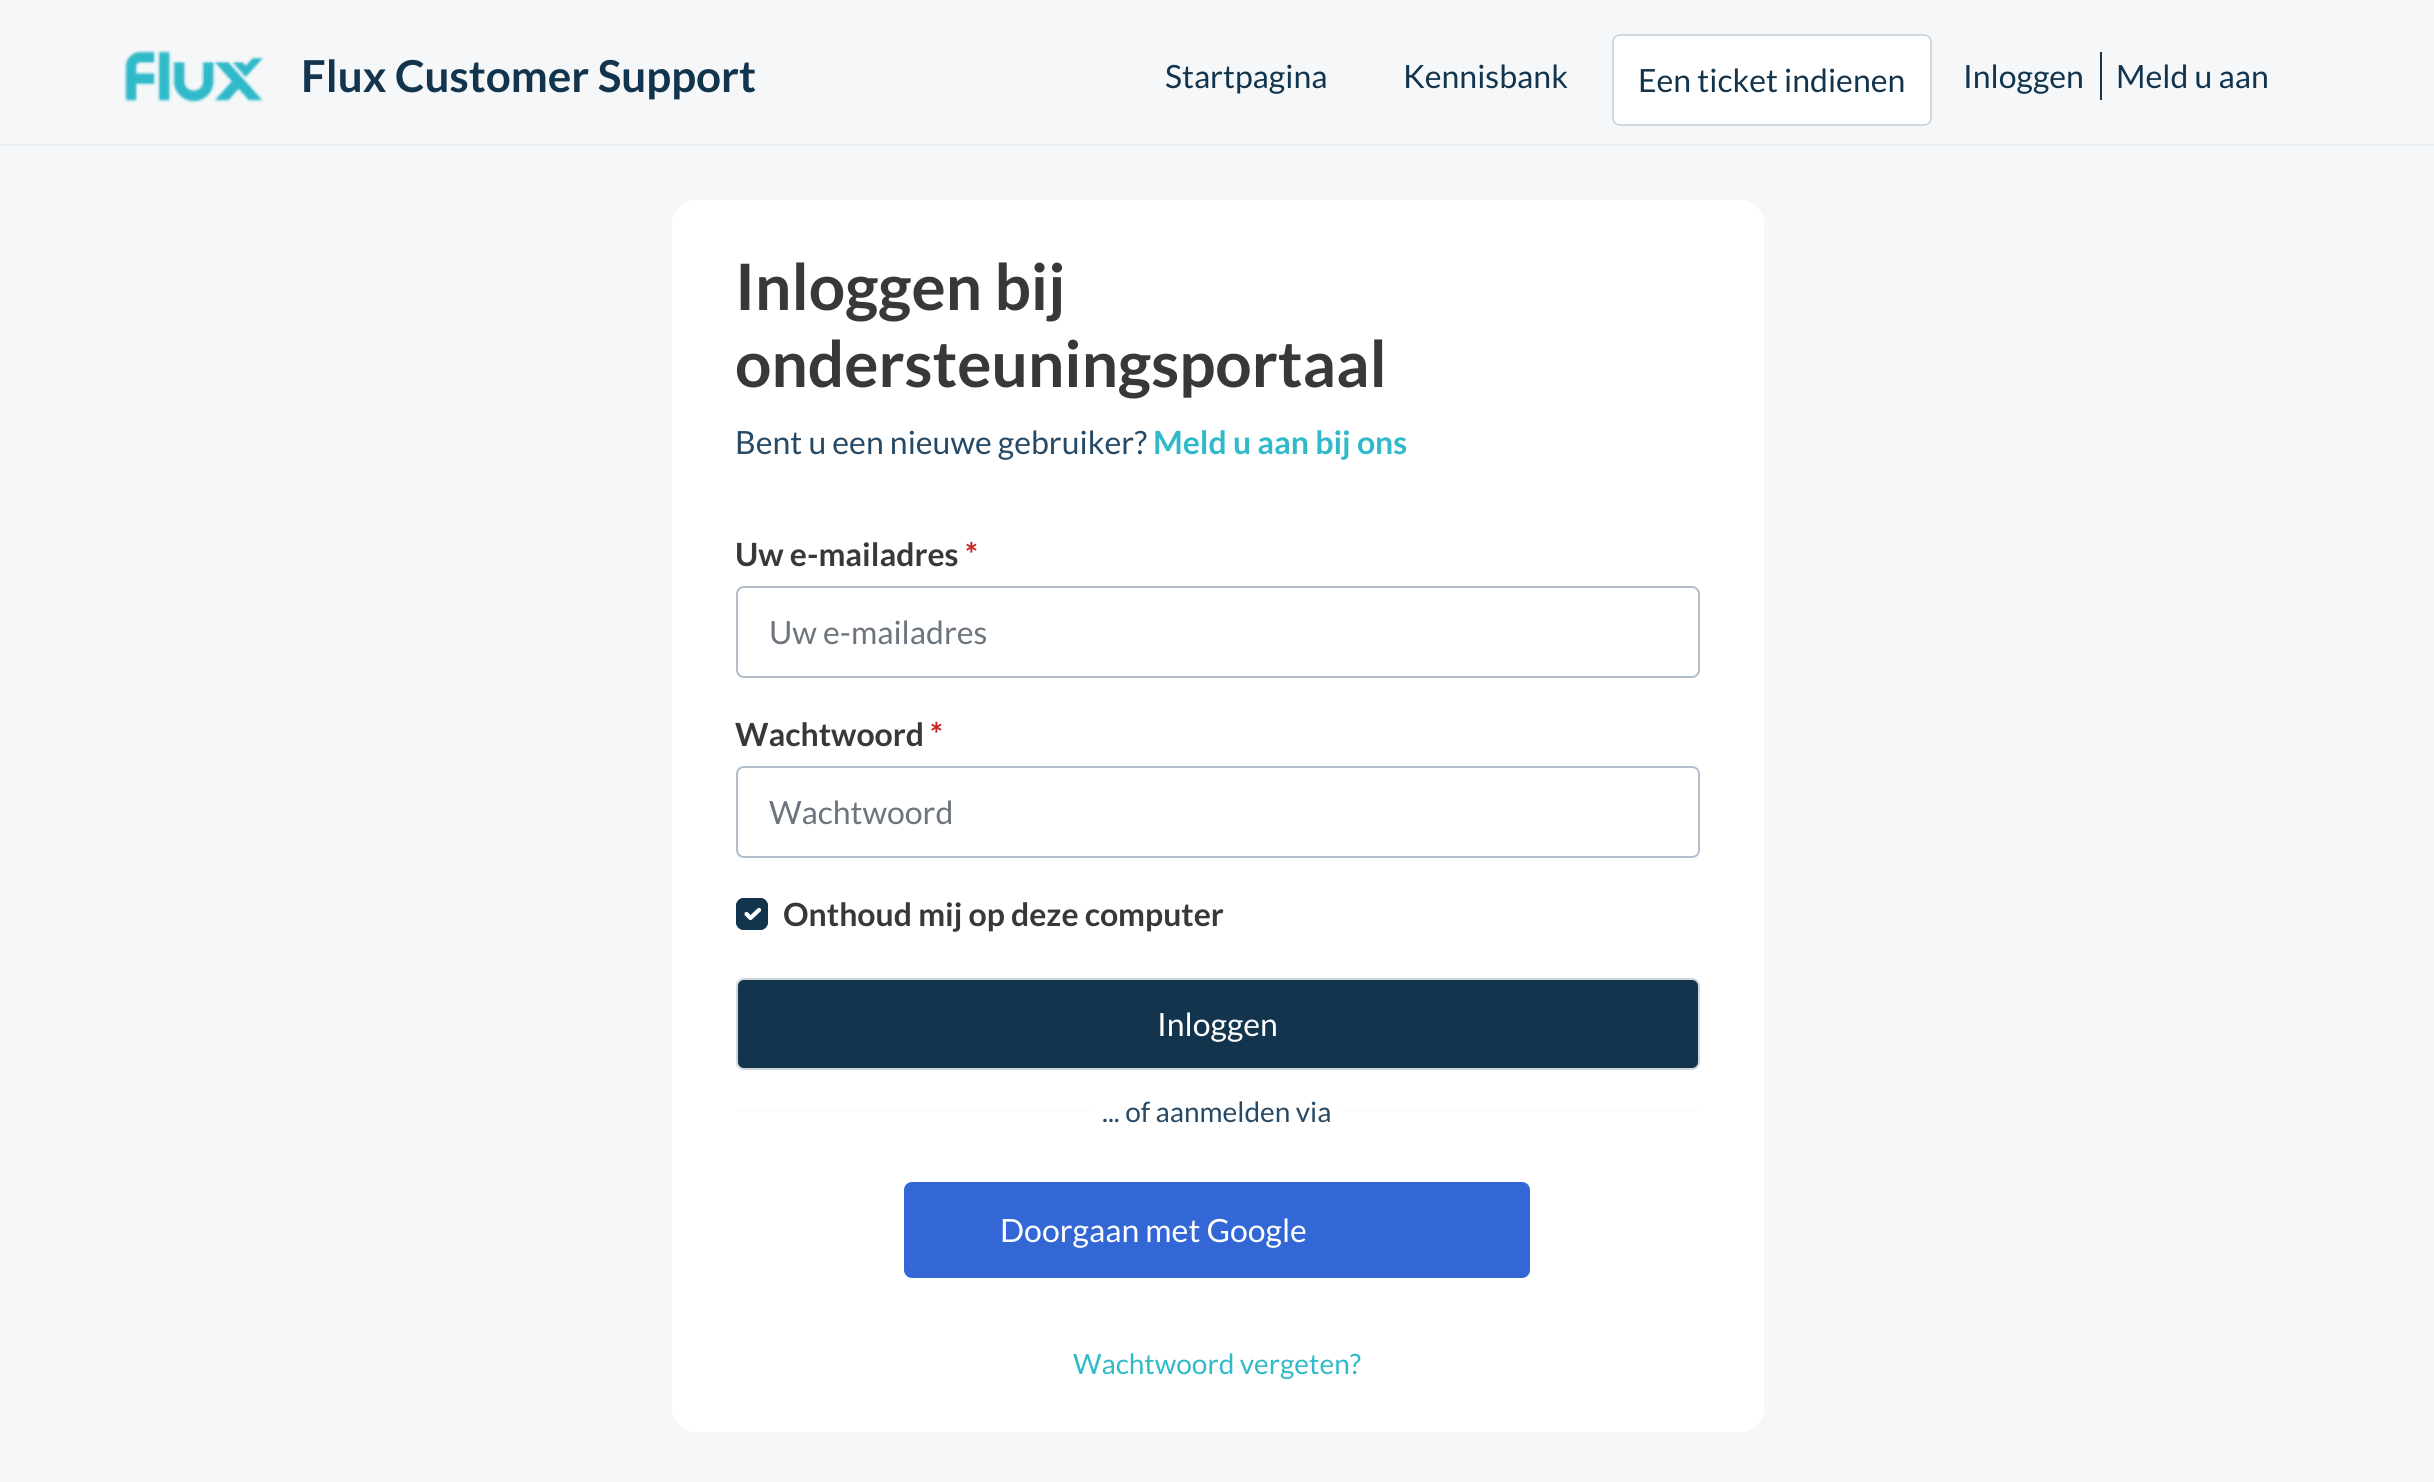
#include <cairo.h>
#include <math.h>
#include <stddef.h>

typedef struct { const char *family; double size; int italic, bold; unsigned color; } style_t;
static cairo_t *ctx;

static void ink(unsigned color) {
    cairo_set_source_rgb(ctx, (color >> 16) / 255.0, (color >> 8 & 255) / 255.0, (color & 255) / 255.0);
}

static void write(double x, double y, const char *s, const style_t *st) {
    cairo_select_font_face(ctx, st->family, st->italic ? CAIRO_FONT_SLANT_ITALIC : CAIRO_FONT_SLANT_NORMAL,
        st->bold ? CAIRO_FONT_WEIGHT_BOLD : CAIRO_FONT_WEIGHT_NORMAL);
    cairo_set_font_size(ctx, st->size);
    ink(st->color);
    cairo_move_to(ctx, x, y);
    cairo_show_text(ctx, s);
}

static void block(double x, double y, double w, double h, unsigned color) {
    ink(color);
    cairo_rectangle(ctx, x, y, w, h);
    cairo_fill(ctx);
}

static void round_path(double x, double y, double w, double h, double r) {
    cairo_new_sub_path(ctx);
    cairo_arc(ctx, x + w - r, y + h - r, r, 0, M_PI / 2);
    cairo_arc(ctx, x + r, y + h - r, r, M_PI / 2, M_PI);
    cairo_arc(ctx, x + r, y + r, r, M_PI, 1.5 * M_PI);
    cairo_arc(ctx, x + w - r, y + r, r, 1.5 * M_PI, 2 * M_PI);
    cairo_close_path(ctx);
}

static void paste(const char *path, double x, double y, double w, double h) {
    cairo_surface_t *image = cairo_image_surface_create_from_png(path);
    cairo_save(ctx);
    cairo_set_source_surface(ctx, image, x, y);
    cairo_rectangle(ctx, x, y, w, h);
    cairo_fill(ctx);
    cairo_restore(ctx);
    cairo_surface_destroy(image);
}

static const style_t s1 = {"Lato", 44, 0, 1, 0x12344d};
static const style_t s2 = {"Lato", 32, 0, 0, 0x12344d};
static const style_t s3 = {"Lato", 64, 0, 1, 0x383838};
static const style_t s4 = {"Lato", 32, 0, 0, 0x264966};
static const style_t s5 = {"Lato", 32, 0, 1, 0x30bac9};
static const style_t s6 = {"Lato", 32, 0, 1, 0x383838};
static const style_t s7 = {"Lato", 32, 0, 1, 0xc82124};
static const style_t s8 = {"Lato", 32, 0, 0, 0x6c757d};
static const style_t s9 = {"Lato", 32, 0, 0, 0xffffff};
static const style_t s10 = {"Lato", 28, 0, 0, 0x264966};
static const style_t s11 = {"Lato", 28, 0, 0, 0x30bac9};

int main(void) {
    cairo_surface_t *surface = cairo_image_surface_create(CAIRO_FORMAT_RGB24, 2434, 1482);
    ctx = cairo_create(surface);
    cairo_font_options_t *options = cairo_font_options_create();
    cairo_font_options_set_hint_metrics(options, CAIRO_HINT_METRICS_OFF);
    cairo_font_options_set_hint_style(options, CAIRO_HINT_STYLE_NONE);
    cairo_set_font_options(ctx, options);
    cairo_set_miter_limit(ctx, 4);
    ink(0xf5f7f9);
    cairo_paint(ctx);
    block(0, 144, 2434, 2, 0xebeff3);
    paste("pic1.png", 124, 50, 140, 54);
    write(301, 92, "Flux Customer Support", &s1);
    write(1165, 88, "Startpagina", &s2);
    write(1403, 88, "Kennisbank", &s2);
    ink(0xffffff);
    round_path(1613, 35, 318, 90, 7);
    cairo_fill_preserve(ctx);
    ink(0xcfd7df);
    cairo_stroke(ctx);
    write(1638, 92, "Een ticket indienen", &s2);
    write(1963, 88, "Inloggen", &s2);
    block(2100, 52, 2, 48, 0x12344d);
    write(2116, 88, "Meld u aan", &s2);
    ink(0xffffff);
    round_path(672, 200, 1092, 1232, 24);
    cairo_fill(ctx);
    write(735, 310, "Inloggen bij", &s3);
    write(735, 387, "ondersteuningsportaal", &s3);
    write(735, 454, "Bent u een nieuwe gebruiker?", &s4);
    write(1153, 454, "Meld u aan bij ons", &s5);
    write(735, 566, "Uw e-mailadres", &s6);
    write(965, 566, "*", &s7);
    round_path(737, 587, 962, 90, 7);
    ink(0xb1bdc8);
    cairo_stroke(ctx);
    write(769, 644, "Uw e-mailadres", &s8);
    write(735, 746, "Wachtwoord", &s6);
    write(930, 746, "*", &s7);
    round_path(737, 767, 962, 90, 7);
    ink(0xb1bdc8);
    cairo_stroke(ctx);
    write(769, 824, "Wachtwoord", &s8);
    ink(0x12344d);
    round_path(736, 898, 32, 32, 8);
    cairo_fill(ctx);
    cairo_new_path(ctx);
    cairo_move_to(ctx, 746.5, 914);
    cairo_line_to(ctx, 750.5, 918);
    cairo_line_to(ctx, 759, 910);
    ink(0xffffff);
    cairo_set_line_width(ctx, 4.2);
    cairo_set_line_cap(ctx, CAIRO_LINE_CAP_ROUND);
    cairo_set_line_join(ctx, CAIRO_LINE_JOIN_ROUND);
    cairo_stroke(ctx);
    round_path(737, 899, 30, 30, 7);
    ink(0x12344d);
    cairo_set_line_width(ctx, 2);
    cairo_set_line_cap(ctx, CAIRO_LINE_CAP_BUTT);
    cairo_set_line_join(ctx, CAIRO_LINE_JOIN_MITER);
    cairo_stroke(ctx);
    write(783, 926, "Onthoud mij op deze computer", &s6);
    ink(0x12344d);
    round_path(737, 979, 962, 90, 7);
    cairo_fill_preserve(ctx);
    ink(0xcfd7df);
    cairo_stroke(ctx);
    write(1157, 1036, "Inloggen", &s9);
    block(736, 1110, 964, 2, 0xfafbfc);
    block(1092, 1110, 250, 2, 0xffffff);
    write(1102, 1122, "... of aanmelden via", &s10);
    ink(0x3367d6);
    round_path(904, 1182, 626, 96, 8);
    cairo_fill(ctx);
    write(1000, 1242, "Doorgaan met Google", &s9);
    write(1073, 1374, "Wachtwoord vergeten?", &s11);
    cairo_surface_write_to_png(surface, "screenshot.png");
    cairo_font_options_destroy(options);
    cairo_destroy(ctx);
    cairo_surface_destroy(surface);
    return 0;
}
